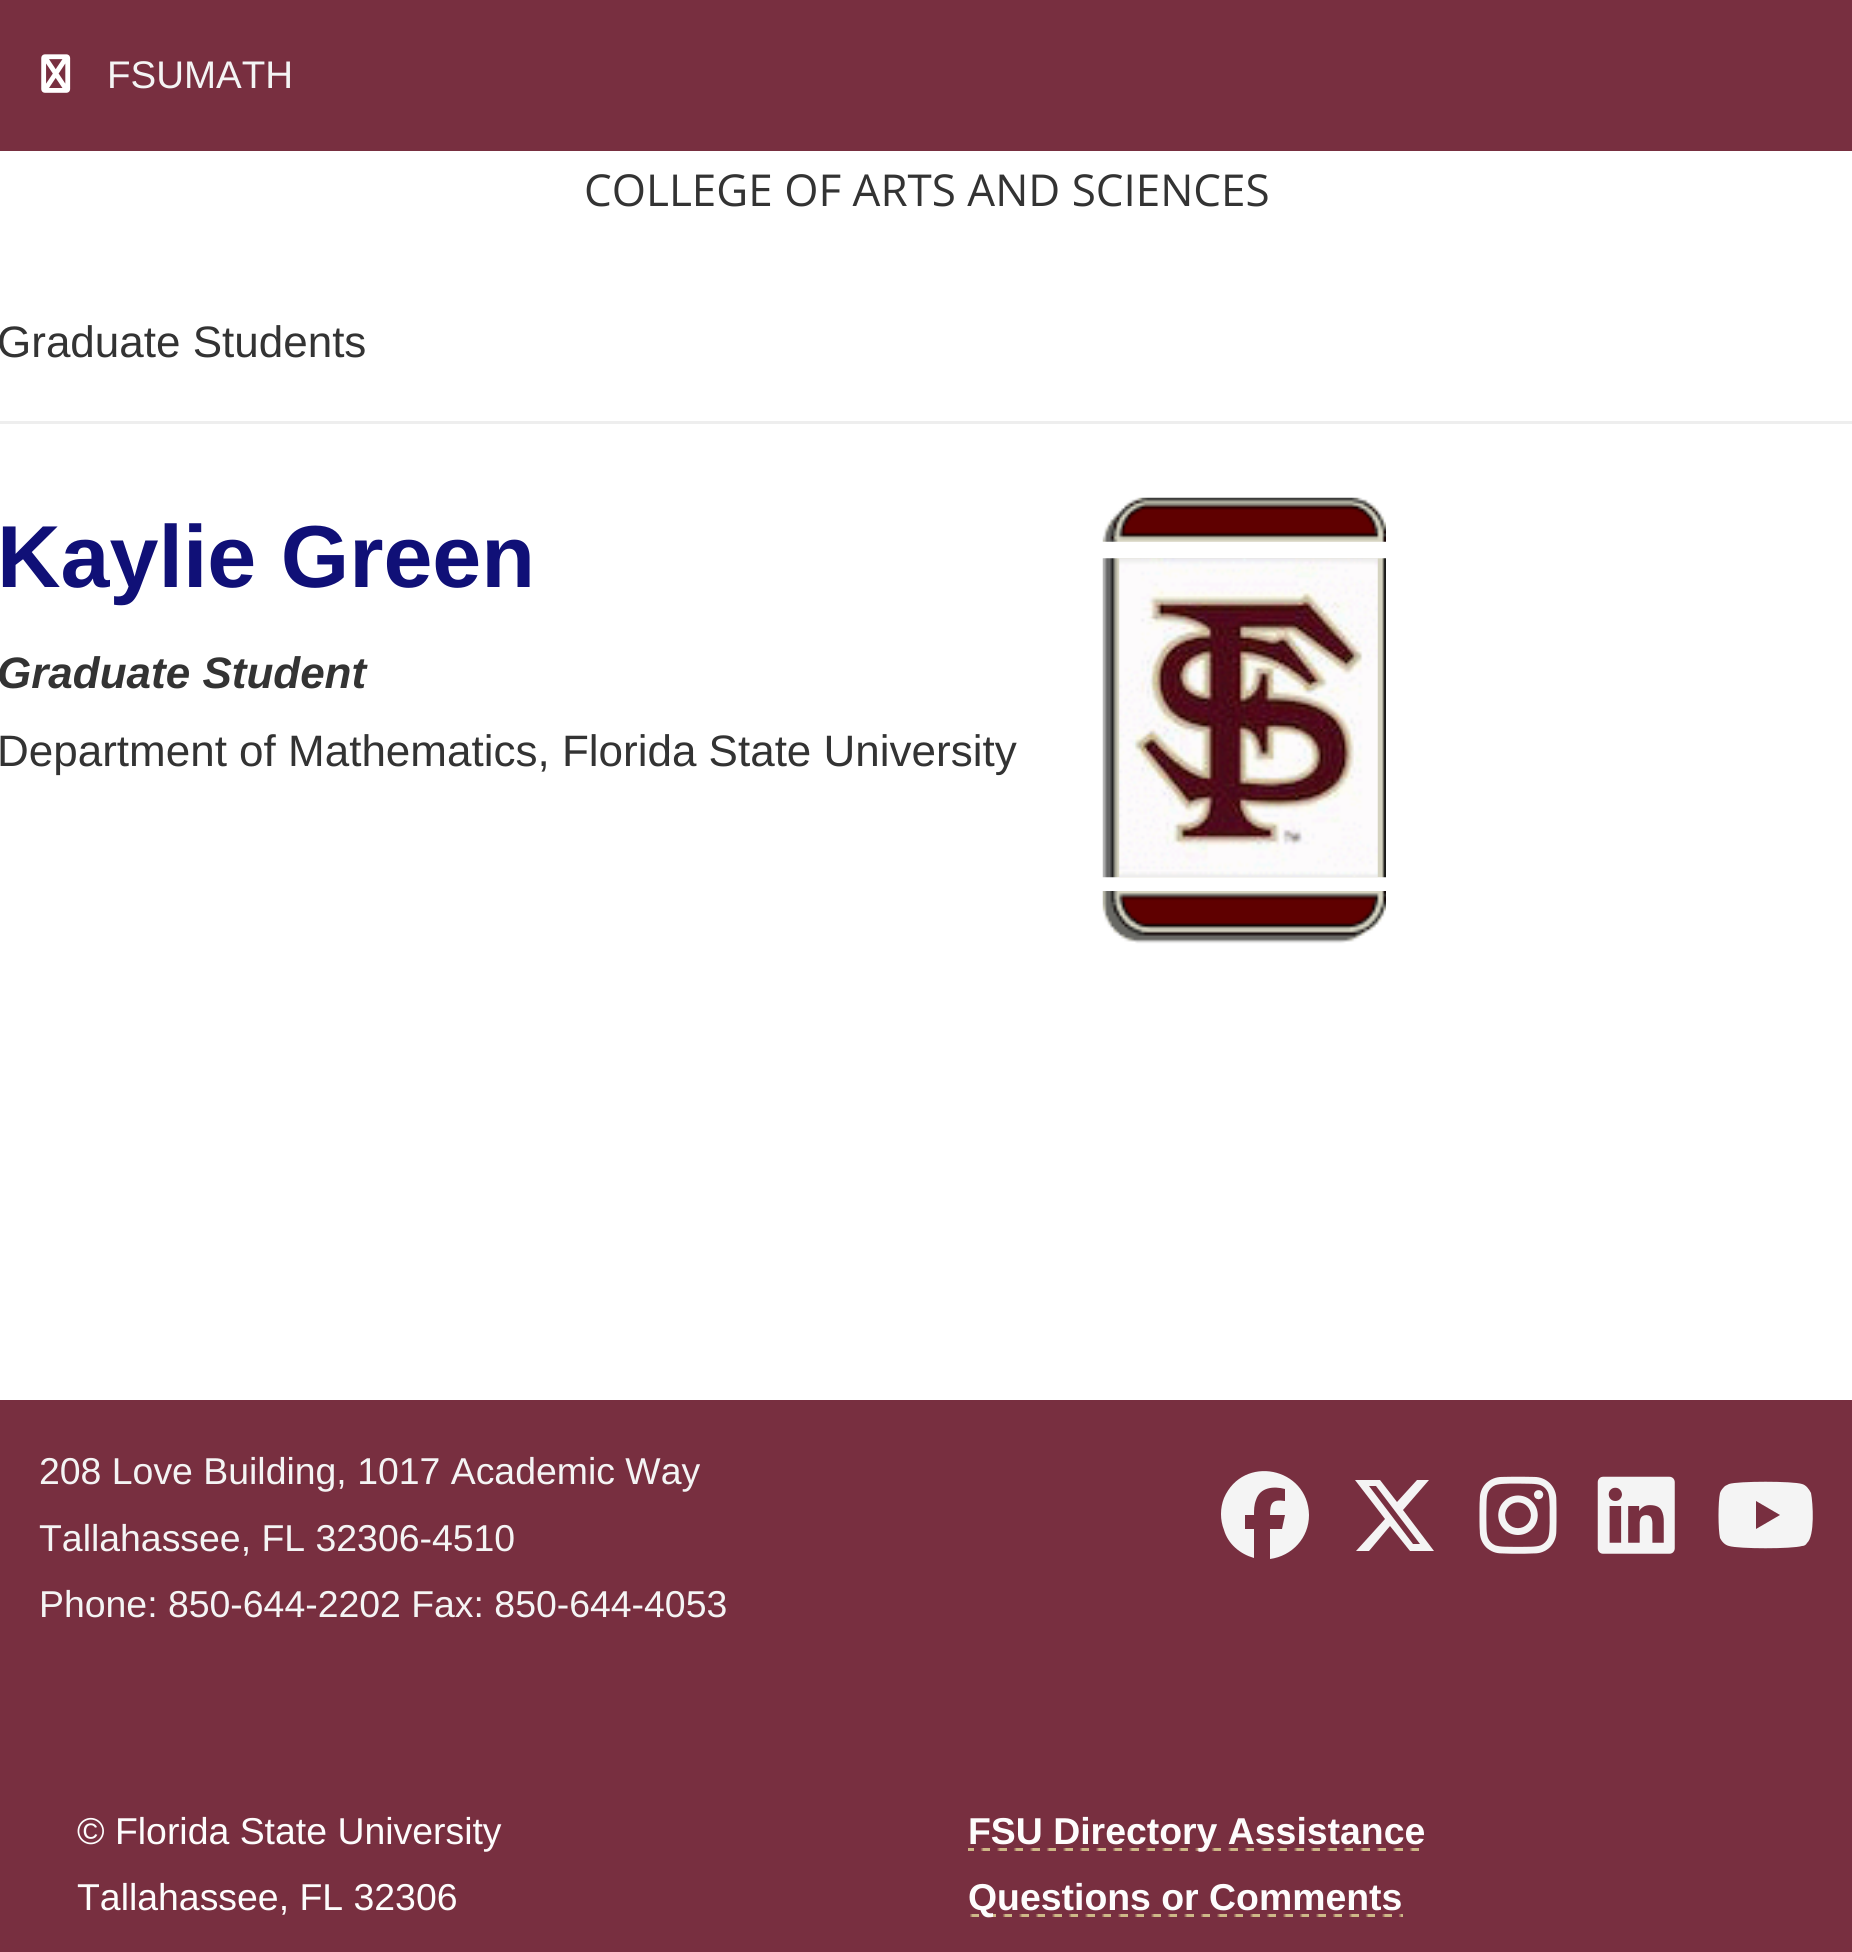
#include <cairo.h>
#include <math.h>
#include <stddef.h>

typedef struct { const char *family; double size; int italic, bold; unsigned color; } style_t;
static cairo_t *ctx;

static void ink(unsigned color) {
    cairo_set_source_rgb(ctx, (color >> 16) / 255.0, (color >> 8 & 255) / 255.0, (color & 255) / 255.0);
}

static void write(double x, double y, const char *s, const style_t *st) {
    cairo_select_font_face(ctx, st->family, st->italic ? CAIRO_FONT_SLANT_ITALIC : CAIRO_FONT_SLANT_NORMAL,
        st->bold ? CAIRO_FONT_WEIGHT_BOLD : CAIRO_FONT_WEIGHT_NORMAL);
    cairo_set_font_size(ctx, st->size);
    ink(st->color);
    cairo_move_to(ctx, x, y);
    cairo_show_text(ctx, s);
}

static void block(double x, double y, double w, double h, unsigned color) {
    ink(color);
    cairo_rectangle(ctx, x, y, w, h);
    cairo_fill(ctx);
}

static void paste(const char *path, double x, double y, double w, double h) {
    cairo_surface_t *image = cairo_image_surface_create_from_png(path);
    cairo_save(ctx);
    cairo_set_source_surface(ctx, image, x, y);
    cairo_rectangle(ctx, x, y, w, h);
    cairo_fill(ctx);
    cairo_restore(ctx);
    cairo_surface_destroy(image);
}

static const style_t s1 = {"Liberation Sans", 38.5, 0, 0, 0xf4f4f4};
static const style_t s2 = {"Open Sans", 44, 0, 0, 0x333333};
static const style_t s3 = {"Liberation Sans", 44, 0, 0, 0x333333};
static const style_t s4 = {"Liberation Sans", 88, 0, 1, 0x101077};
static const style_t s5 = {"Liberation Sans", 44, 1, 1, 0x333333};
static const style_t s6 = {"Liberation Sans", 37.4, 0, 0, 0xf4f4f4};
static const style_t s7 = {"Liberation Sans", 37.4, 0, 0, 0xfdfcfc};
static const style_t s8 = {"Liberation Sans", 37.4, 0, 1, 0xfdfcfc};

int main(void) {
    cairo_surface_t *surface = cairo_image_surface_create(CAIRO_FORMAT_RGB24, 1852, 1952);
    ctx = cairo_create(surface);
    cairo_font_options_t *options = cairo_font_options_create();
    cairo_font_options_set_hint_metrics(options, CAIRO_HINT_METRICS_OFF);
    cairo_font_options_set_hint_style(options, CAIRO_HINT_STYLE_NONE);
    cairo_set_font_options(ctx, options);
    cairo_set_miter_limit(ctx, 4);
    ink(0xffffff);
    cairo_paint(ctx);
    block(0, 0, 1852, 151, 0x782f40);
    paste("pic1.png", 41, 54, 30, 39);
    write(107, 88, "FSUMATH", &s1);
    write(584, 206, "COLLEGE OF ARTS AND SCIENCES", &s2);
    write(-3, 357, "Graduate Students", &s3);
    block(0, 421, 1852, 3, 0xeeeeee);
    write(-3, 587, "Kaylie Green", &s4);
    write(-3, 688, "Graduate Student", &s5);
    write(-3, 766, "Department of Mathematics, Florida State University", &s3);
    paste("pic2.png", 1102, 497, 284, 45);
    paste("pic3.png", 1102, 558, 284, 320);
    paste("pic4.png", 1119, 558, 259, 319);
    paste("pic5.png", 1102, 891, 284, 53);
    block(0, 1400, 1852, 552, 0x782f40);
    write(39, 1484, "208 Love Building, 1017 Academic Way", &s6);
    write(39, 1551, "Tallahassee, FL 32306-4510", &s6);
    write(39, 1617, "Phone: 850-644-2202 Fax: 850-644-4053", &s6);
    cairo_new_path(ctx);
    cairo_move_to(ctx, 1309, 1515);
    cairo_curve_to(ctx, 1308, 1467, 1243, 1454, 1224, 1498);
    cairo_curve_to(ctx, 1220, 1508, 1220, 1520, 1224, 1530);
    cairo_curve_to(ctx, 1228, 1544, 1240, 1554, 1254, 1558);
    cairo_line_to(ctx, 1254, 1529);
    cairo_line_to(ctx, 1245, 1529);
    cairo_line_to(ctx, 1245, 1515);
    cairo_line_to(ctx, 1254, 1515);
    cairo_curve_to(ctx, 1254, 1510, 1254, 1505, 1256, 1500);
    cairo_curve_to(ctx, 1260, 1487, 1274, 1486, 1285, 1489);
    cairo_line_to(ctx, 1285, 1501);
    cairo_curve_to(ctx, 1272, 1499, 1270, 1503, 1270, 1515);
    cairo_line_to(ctx, 1285, 1515);
    cairo_line_to(ctx, 1282, 1529);
    cairo_line_to(ctx, 1270, 1529);
    cairo_line_to(ctx, 1270, 1559);
    cairo_curve_to(ctx, 1292, 1556, 1309, 1538, 1309, 1515);
    cairo_close_path(ctx);
    cairo_fill(ctx);
    cairo_new_path(ctx);
    cairo_move_to(ctx, 1417, 1480);
    cairo_line_to(ctx, 1429, 1480);
    cairo_line_to(ctx, 1417, 1480);
    cairo_line_to(ctx, 1429, 1480);
    cairo_line_to(ctx, 1403, 1510);
    cairo_line_to(ctx, 1434, 1551);
    cairo_line_to(ctx, 1410, 1551);
    cairo_line_to(ctx, 1390, 1526);
    cairo_line_to(ctx, 1369, 1551);
    cairo_line_to(ctx, 1356, 1551);
    cairo_line_to(ctx, 1385, 1519);
    cairo_line_to(ctx, 1355, 1480);
    cairo_line_to(ctx, 1380, 1480);
    cairo_line_to(ctx, 1397, 1502);
    cairo_close_path(ctx);
    cairo_move_to(ctx, 1413, 1544);
    cairo_line_to(ctx, 1420, 1544);
    cairo_line_to(ctx, 1413, 1544);
    cairo_line_to(ctx, 1420, 1544);
    cairo_line_to(ctx, 1376, 1486);
    cairo_line_to(ctx, 1369, 1486);
    cairo_close_path(ctx);
    cairo_fill(ctx);
    paste("pic6.png", 1479, 1476, 78, 78);
    paste("pic7.png", 1597, 1476, 78, 78);
    cairo_new_path(ctx);
    cairo_move_to(ctx, 1811, 1493);
    cairo_curve_to(ctx, 1809, 1489, 1806, 1485, 1802, 1484);
    cairo_curve_to(ctx, 1793, 1481, 1738, 1481, 1729, 1484);
    cairo_line_to(ctx, 1725, 1486);
    cairo_curve_to(ctx, 1723, 1488, 1721, 1490, 1720, 1493);
    cairo_curve_to(ctx, 1718, 1502, 1718, 1529, 1720, 1538);
    cairo_curve_to(ctx, 1722, 1542, 1725, 1545, 1729, 1546);
    cairo_curve_to(ctx, 1739, 1549, 1792, 1549, 1802, 1546);
    cairo_curve_to(ctx, 1804, 1546, 1806, 1545, 1807, 1543);
    cairo_curve_to(ctx, 1815, 1536, 1813, 1503, 1811, 1493);
    cairo_close_path(ctx);
    cairo_move_to(ctx, 1756, 1529);
    cairo_line_to(ctx, 1756, 1501);
    cairo_line_to(ctx, 1756, 1529);
    cairo_line_to(ctx, 1756, 1501);
    cairo_line_to(ctx, 1780, 1515);
    cairo_close_path(ctx);
    cairo_fill(ctx);
    write(77, 1844, "© Florida State University", &s7);
    write(77, 1910, "Tallahassee, FL 32306", &s7);
    paste("pic8.png", 968, 1848, 451, 3);
    write(968, 1844, "FSU Directory Assistance", &s8);
    paste("pic9.png", 970, 1914, 433, 3);
    write(968, 1910, "Questions or Comments", &s8);
    cairo_surface_write_to_png(surface, "screenshot.png");
    cairo_font_options_destroy(options);
    cairo_destroy(ctx);
    cairo_surface_destroy(surface);
    return 0;
}
